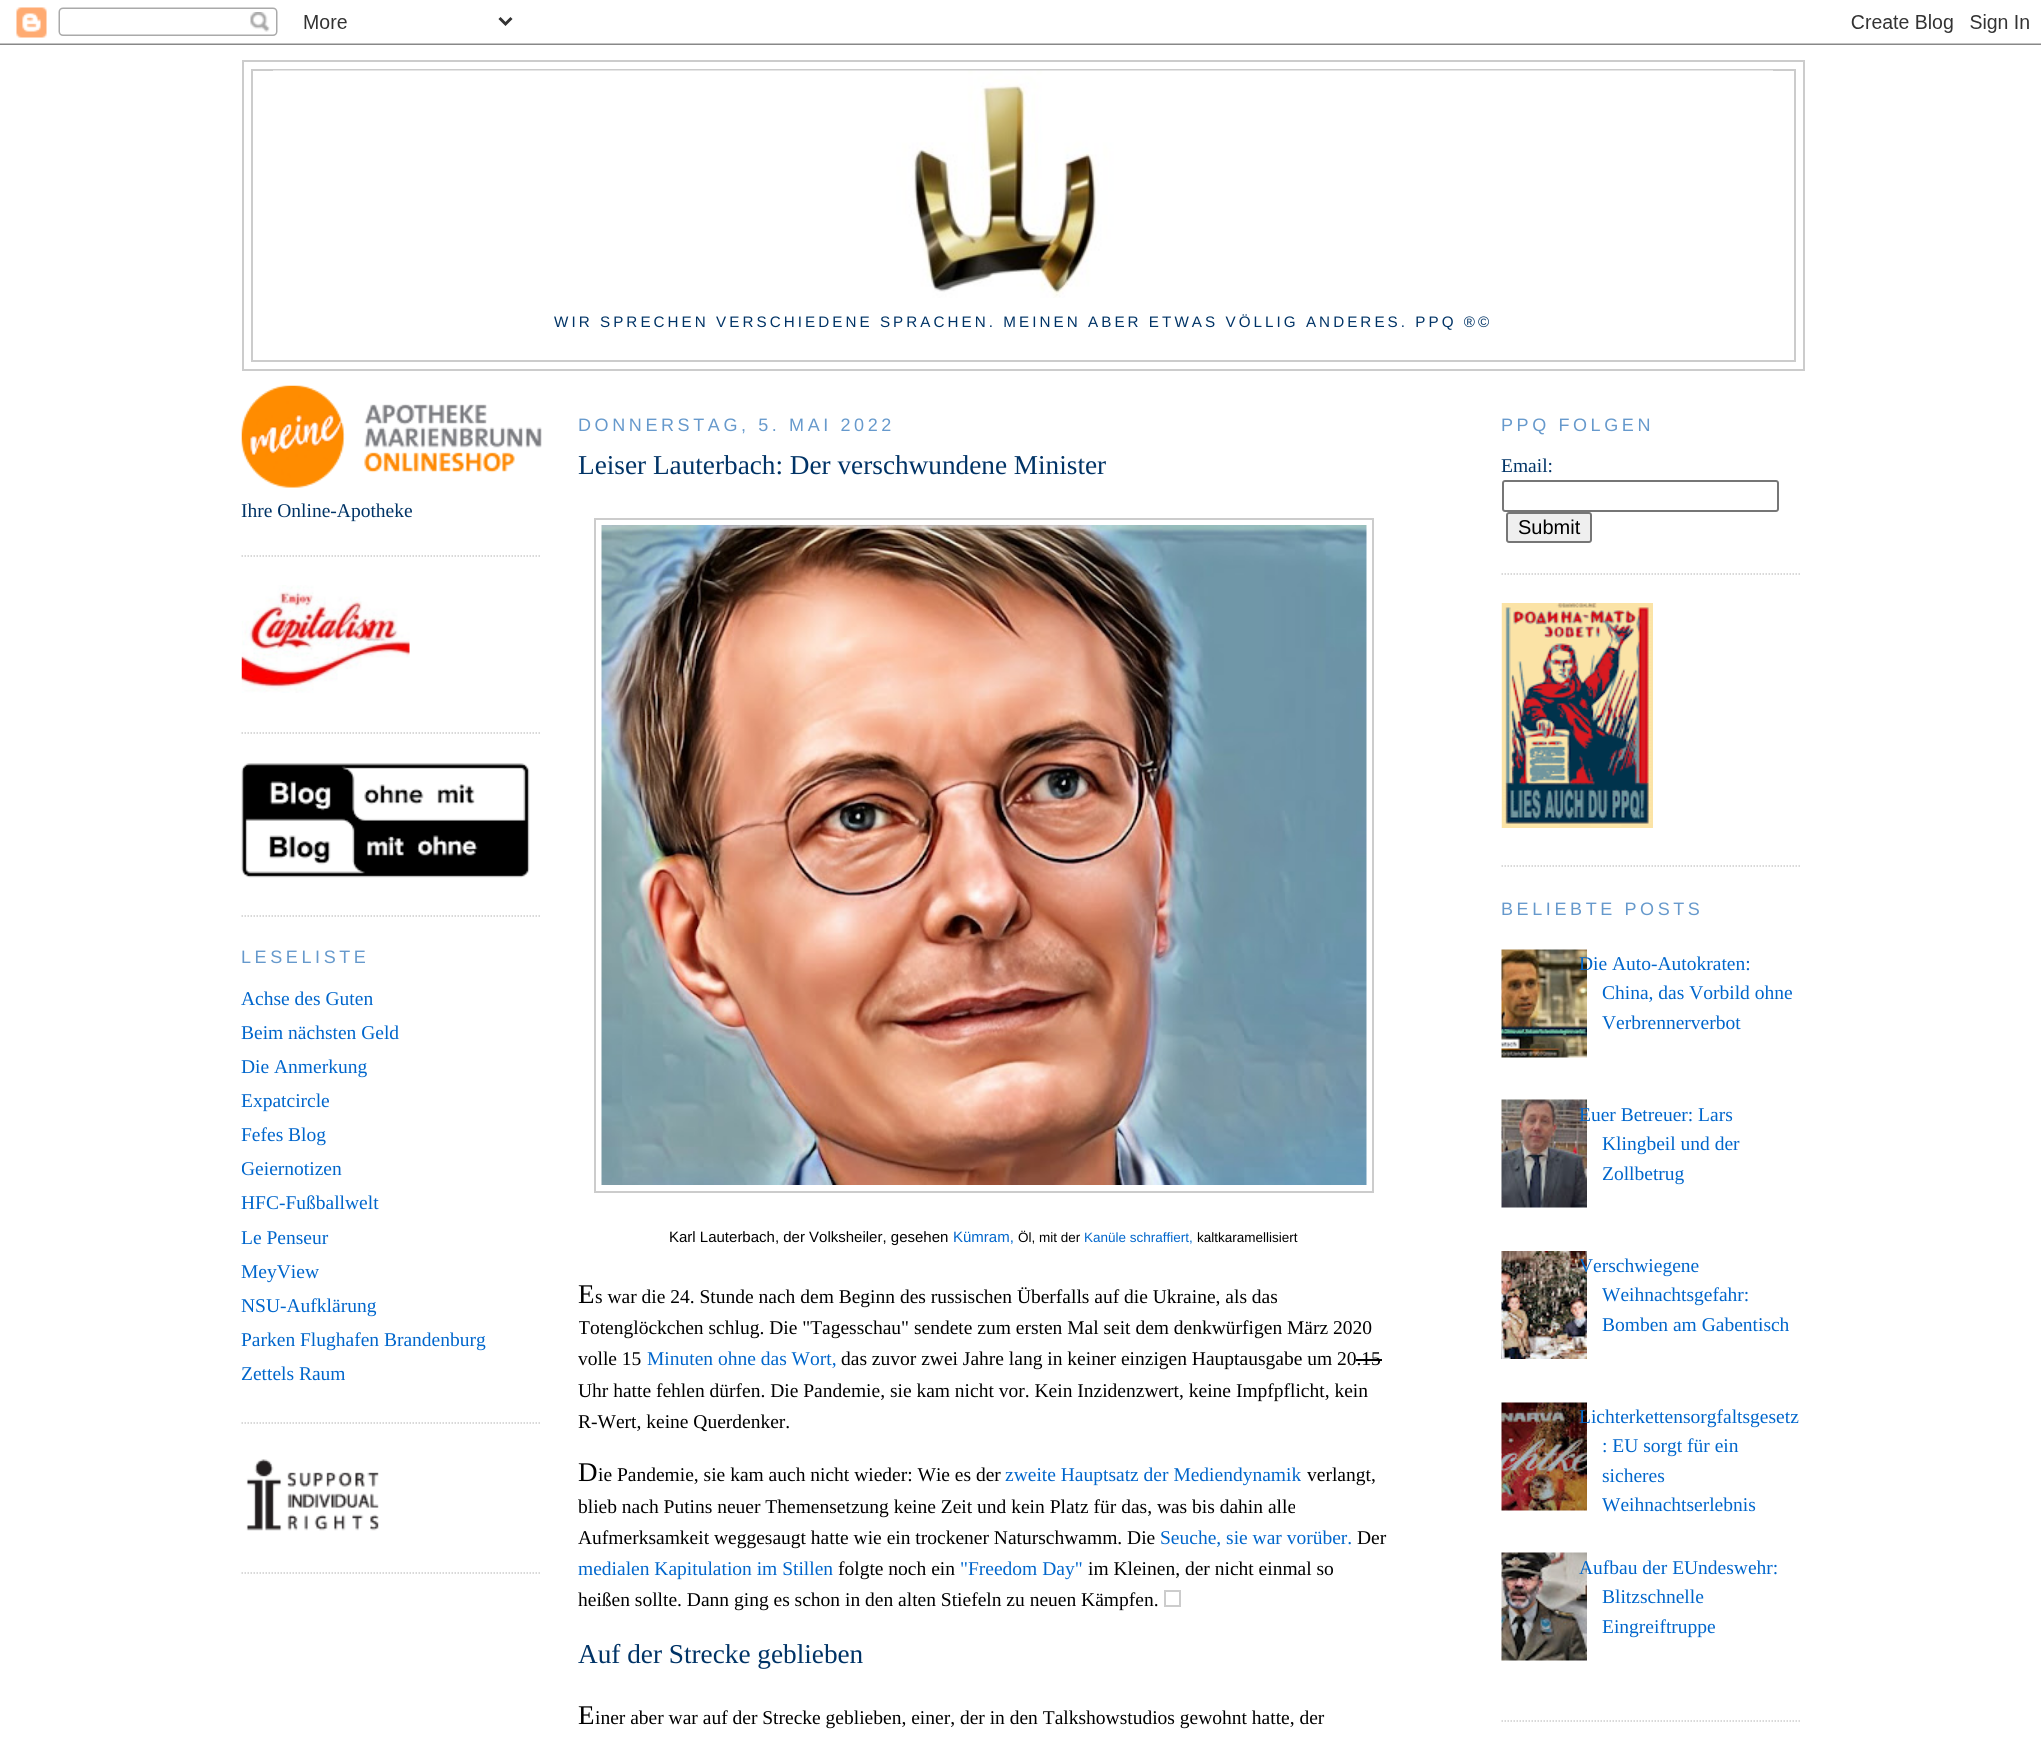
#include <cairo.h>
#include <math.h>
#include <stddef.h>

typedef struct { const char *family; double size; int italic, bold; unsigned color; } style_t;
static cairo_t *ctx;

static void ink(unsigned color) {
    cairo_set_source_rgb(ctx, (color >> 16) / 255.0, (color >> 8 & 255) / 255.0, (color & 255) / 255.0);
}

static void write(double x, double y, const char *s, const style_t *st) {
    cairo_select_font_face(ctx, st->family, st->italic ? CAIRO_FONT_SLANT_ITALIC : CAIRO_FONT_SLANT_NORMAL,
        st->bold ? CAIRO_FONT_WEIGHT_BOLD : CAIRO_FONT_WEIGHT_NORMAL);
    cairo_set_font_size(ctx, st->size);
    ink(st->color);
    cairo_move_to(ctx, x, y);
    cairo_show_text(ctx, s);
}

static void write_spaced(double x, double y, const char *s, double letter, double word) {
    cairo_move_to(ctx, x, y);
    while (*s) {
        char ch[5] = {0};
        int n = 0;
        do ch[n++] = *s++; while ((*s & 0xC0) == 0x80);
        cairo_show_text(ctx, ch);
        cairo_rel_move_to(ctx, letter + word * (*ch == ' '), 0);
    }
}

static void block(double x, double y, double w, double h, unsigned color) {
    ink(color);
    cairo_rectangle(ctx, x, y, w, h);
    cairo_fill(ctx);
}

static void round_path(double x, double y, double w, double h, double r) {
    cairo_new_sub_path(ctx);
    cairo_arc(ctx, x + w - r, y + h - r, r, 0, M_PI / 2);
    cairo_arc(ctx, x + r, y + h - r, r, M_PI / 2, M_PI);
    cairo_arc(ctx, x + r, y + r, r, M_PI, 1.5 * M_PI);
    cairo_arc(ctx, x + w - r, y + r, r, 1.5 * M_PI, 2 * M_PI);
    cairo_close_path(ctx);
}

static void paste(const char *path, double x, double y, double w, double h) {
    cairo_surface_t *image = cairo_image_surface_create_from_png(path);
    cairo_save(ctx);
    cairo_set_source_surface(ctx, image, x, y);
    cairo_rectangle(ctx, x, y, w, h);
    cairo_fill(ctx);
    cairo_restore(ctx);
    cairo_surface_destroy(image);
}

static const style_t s1 = {"Liberation Serif", 19.5, 0, 0, 0x003366};
static const style_t s2 = {"Liberation Serif", 19.5, 0, 0, 0x0066cc};
static const style_t s3 = {"Liberation Serif", 27.25, 0, 0, 0x003366};
static const style_t s4 = {"Liberation Sans", 15, 0, 0, 0x000000};
static const style_t s5 = {"Liberation Sans", 15, 0, 0, 0x0066cc};
static const style_t s6 = {"Liberation Sans", 13.5, 0, 0, 0x000000};
static const style_t s7 = {"Liberation Sans", 13.5, 0, 0, 0x0066cc};
static const style_t s8 = {"Liberation Serif", 27, 0, 0, 0x000000};
static const style_t s9 = {"Liberation Serif", 19.5, 0, 0, 0x000000};
static const style_t s10 = {"Liberation Sans", 20, 0, 0, 0x000000};

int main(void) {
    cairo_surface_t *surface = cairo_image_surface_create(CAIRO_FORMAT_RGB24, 2041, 1738);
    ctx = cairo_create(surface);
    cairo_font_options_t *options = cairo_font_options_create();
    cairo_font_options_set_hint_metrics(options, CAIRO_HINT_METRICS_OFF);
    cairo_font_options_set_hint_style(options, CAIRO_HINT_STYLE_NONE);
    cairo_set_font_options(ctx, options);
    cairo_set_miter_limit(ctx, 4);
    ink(0xffffff);
    cairo_paint(ctx);
    paste("pic1.png", 0, 7, 2041, 38);
    cairo_rectangle(ctx, 243, 61, 1561, 309);
    ink(0xcccccc);
    cairo_stroke(ctx);
    cairo_rectangle(ctx, 252, 70, 1543, 291);
    cairo_stroke(ctx);
    paste("pic2.png", 273, 70, 1500, 228);
    cairo_select_font_face(ctx, "Liberation Sans", CAIRO_FONT_SLANT_NORMAL, CAIRO_FONT_WEIGHT_NORMAL);
    cairo_set_font_size(ctx, 15.2);
    ink(0x003366);
    write_spaced(554, 327, "WIR SPRECHEN VERSCHIEDENE SPRACHEN. MEINEN ABER ETWAS VÖLLIG ANDERES. PPQ ®©", 3.05, 0);
    cairo_new_path(ctx);
    cairo_move_to(ctx, 241.5, 556);
    cairo_line_to(ctx, 541.5, 556);
    ink(0xcccccc);
    cairo_set_line_width(ctx, 1.5);
    cairo_set_dash(ctx, (double[]){1.5, 1.5}, 2, 0);
    cairo_stroke(ctx);
    paste("pic3.png", 241, 385, 301, 103);
    write(241, 517, "Ihre Online-Apotheke", &s1);
    cairo_new_path(ctx);
    cairo_move_to(ctx, 241.5, 733);
    cairo_line_to(ctx, 541.5, 733);
    ink(0xcccccc);
    cairo_stroke(ctx);
    paste("pic4.png", 241, 585, 169, 108);
    cairo_new_path(ctx);
    cairo_move_to(ctx, 241.5, 916);
    cairo_line_to(ctx, 541.5, 916);
    cairo_stroke(ctx);
    paste("pic5.png", 241, 763, 289, 115);
    cairo_new_path(ctx);
    cairo_move_to(ctx, 241.5, 1423);
    cairo_line_to(ctx, 541.5, 1423);
    cairo_stroke(ctx);
    cairo_select_font_face(ctx, "Liberation Sans", CAIRO_FONT_SLANT_NORMAL, CAIRO_FONT_WEIGHT_NORMAL);
    cairo_set_font_size(ctx, 18);
    ink(0x6699cc);
    write_spaced(241, 963, "LESELISTE", 3.6, 0);
    write(241, 1005, "Achse des Guten", &s2);
    write(241, 1039, "Beim nächsten Geld", &s2);
    write(241, 1073, "Die Anmerkung", &s2);
    write(241, 1107, "Expatcircle", &s2);
    write(241, 1141, "Fefes Blog", &s2);
    cairo_save(ctx);
    cairo_rectangle(ctx, 242, 386, 300, 1216);
    cairo_clip(ctx);
    write(241, 1175, "Geiernotizen", &s2);
    cairo_restore(ctx);
    write(241, 1209, "HFC-Fußballwelt", &s2);
    write(241, 1244, "Le Penseur", &s2);
    write(241, 1278, "MeyView", &s2);
    write(241, 1312, "NSU-Aufklärung", &s2);
    write(241, 1346, "Parken Flughafen Brandenburg", &s2);
    write(241, 1380, "Zettels Raum", &s2);
    cairo_new_path(ctx);
    cairo_move_to(ctx, 241.5, 1573);
    cairo_line_to(ctx, 541.5, 1573);
    ink(0xcccccc);
    cairo_stroke(ctx);
    paste("pic6.png", 246, 1459, 133, 72);
    cairo_select_font_face(ctx, "Liberation Sans", CAIRO_FONT_SLANT_NORMAL, CAIRO_FONT_WEIGHT_NORMAL);
    cairo_set_font_size(ctx, 18);
    ink(0x6699cc);
    write_spaced(578, 431, "DONNERSTAG, 5. MAI 2022", 3.6, 0);
    write(578, 474, "Leiser Lauterbach: Der verschwundene Minister", &s3);
    cairo_rectangle(ctx, 595, 519, 778, 673);
    ink(0xcccccc);
    cairo_set_line_width(ctx, 2);
    cairo_set_dash(ctx, NULL, 0, 0);
    cairo_stroke(ctx);
    paste("pic7.png", 601, 525, 766, 660);
    write(669, 1242, "Karl Lauterbach, der Volksheiler, gesehen", &s4);
    write(953, 1242, "Kümram,", &s5);
    write(1018, 1242, "Öl, mit der", &s6);
    write(1084, 1242, "Kanüle schraffiert,", &s7);
    write(1197, 1242, "kaltkaramellisiert", &s6);
    write(578, 1303, "E", &s8);
    write(595, 1303, "s war die 24. Stunde nach dem Beginn des russischen Überfalls auf die Ukraine, als das", &s9);
    cairo_save(ctx);
    cairo_rectangle(ctx, 579, 386, 810, 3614);
    cairo_clip(ctx);
    write(578, 1334, "Totenglöckchen schlug. Die \"Tagesschau\" sendete zum ersten Mal seit dem denkwürfigen März 2020", &s9);
    cairo_restore(ctx);
    write(578, 1365, "volle 15", &s9);
    write(647, 1365, "Minuten ohne das Wort,", &s2);
    write(841, 1365, "das zuvor zwei Jahre lang in keiner einzigen Hauptausgabe um 20.15", &s9);
    block(1356, 1359, 26, 2, 0x000000);
    write(578, 1397, "Uhr hatte fehlen dürfen. Die Pandemie, sie kam nicht vor. Kein Inzidenzwert, keine Impfpflicht, kein", &s9);
    write(578, 1428, "R-Wert, keine Querdenker.", &s9);
    write(578, 1481, "D", &s8);
    write(598, 1481, "ie Pandemie, sie kam auch nicht wieder: Wie es der", &s9);
    write(1005, 1481, "zweite Hauptsatz der Mediendynamik", &s2);
    write(1307, 1481, "verlangt,", &s9);
    write(578, 1513, "blieb nach Putins neuer Themensetzung keine Zeit und kein Platz für das, was bis dahin alle", &s9);
    write(578, 1544, "Aufmerksamkeit weggesaugt hatte wie ein trockener Naturschwamm. Die", &s9);
    write(1160, 1544, "Seuche, sie war vorüber.", &s2);
    write(1357, 1544, "Der", &s9);
    write(578, 1575, "medialen Kapitulation im Stillen", &s2);
    write(838, 1575, "folgte noch ein", &s9);
    write(960, 1575, "\"Freedom Day\"", &s2);
    write(1088, 1575, "im Kleinen, der nicht einmal so", &s9);
    write(578, 1606, "heißen sollte. Dann ging es schon in den alten Stiefeln zu neuen Kämpfen.", &s9);
    cairo_rectangle(ctx, 1165, 1591, 15, 15);
    ink(0xcccccc);
    cairo_stroke(ctx);
    write(578, 1663, "Auf der Strecke geblieben", &s3);
    write(578, 1724, "E", &s8);
    write(595, 1724, "iner aber war auf der Strecke geblieben, einer, der in den Talkshowstudios gewohnt hatte, der", &s9);
    cairo_new_path(ctx);
    cairo_move_to(ctx, 1501.5, 574);
    cairo_line_to(ctx, 1801.5, 574);
    ink(0xcccccc);
    cairo_set_line_width(ctx, 1.5);
    cairo_set_dash(ctx, (double[]){1.5, 1.5}, 2, 0);
    cairo_stroke(ctx);
    cairo_select_font_face(ctx, "Liberation Sans", CAIRO_FONT_SLANT_NORMAL, CAIRO_FONT_WEIGHT_NORMAL);
    cairo_set_font_size(ctx, 18);
    ink(0x6699cc);
    write_spaced(1501, 431, "PPQ FOLGEN", 3.6, 0);
    write(1501, 472, "Email:", &s1);
    round_path(1503, 481, 275, 30, 2);
    ink(0x767676);
    cairo_set_line_width(ctx, 2);
    cairo_set_dash(ctx, NULL, 0, 0);
    cairo_stroke(ctx);
    ink(0xefefef);
    round_path(1507, 513, 84, 29, 2);
    cairo_fill_preserve(ctx);
    ink(0x767676);
    cairo_stroke(ctx);
    write(1518, 534, "Submit", &s10);
    cairo_new_path(ctx);
    cairo_move_to(ctx, 1501.5, 866);
    cairo_line_to(ctx, 1801.5, 866);
    ink(0xcccccc);
    cairo_set_line_width(ctx, 1.5);
    cairo_set_dash(ctx, (double[]){1.5, 1.5}, 2, 0);
    cairo_stroke(ctx);
    paste("pic8.png", 1501, 603, 152, 225);
    cairo_new_path(ctx);
    cairo_move_to(ctx, 1501.5, 1721);
    cairo_line_to(ctx, 1801.5, 1721);
    cairo_stroke(ctx);
    cairo_set_font_size(ctx, 18);
    ink(0x6699cc);
    write_spaced(1501, 915, "BELIEBTE POSTS", 3.6, 0);
    paste("pic9.png", 1501, 949, 86, 109);
    write(1579, 970, "Die Auto-Autokraten:", &s2);
    write(1602, 999, "China, das Vorbild ohne", &s2);
    write(1602, 1029, "Verbrennerverbot", &s2);
    paste("pic10.png", 1501, 1099, 86, 109);
    write(1579, 1121, "Euer Betreuer: Lars", &s2);
    write(1602, 1150, "Klingbeil und der", &s2);
    write(1602, 1180, "Zollbetrug", &s2);
    paste("pic11.png", 1501, 1251, 86, 108);
    write(1579, 1272, "Verschwiegene", &s2);
    write(1602, 1301, "Weihnachtsgefahr:", &s2);
    write(1602, 1331, "Bomben am Gabentisch", &s2);
    paste("pic12.png", 1501, 1402, 86, 109);
    write(1579, 1423, "Lichterkettensorgfaltsgesetz", &s2);
    write(1602, 1452, ": EU sorgt für ein", &s2);
    write(1602, 1482, "sicheres", &s2);
    write(1602, 1511, "Weihnachtserlebnis", &s2);
    paste("pic13.png", 1501, 1552, 86, 109);
    write(1579, 1574, "Aufbau der EUndeswehr:", &s2);
    write(1602, 1603, "Blitzschnelle", &s2);
    write(1602, 1633, "Eingreiftruppe", &s2);
    cairo_surface_write_to_png(surface, "screenshot.png");
    cairo_font_options_destroy(options);
    cairo_destroy(ctx);
    cairo_surface_destroy(surface);
    return 0;
}
